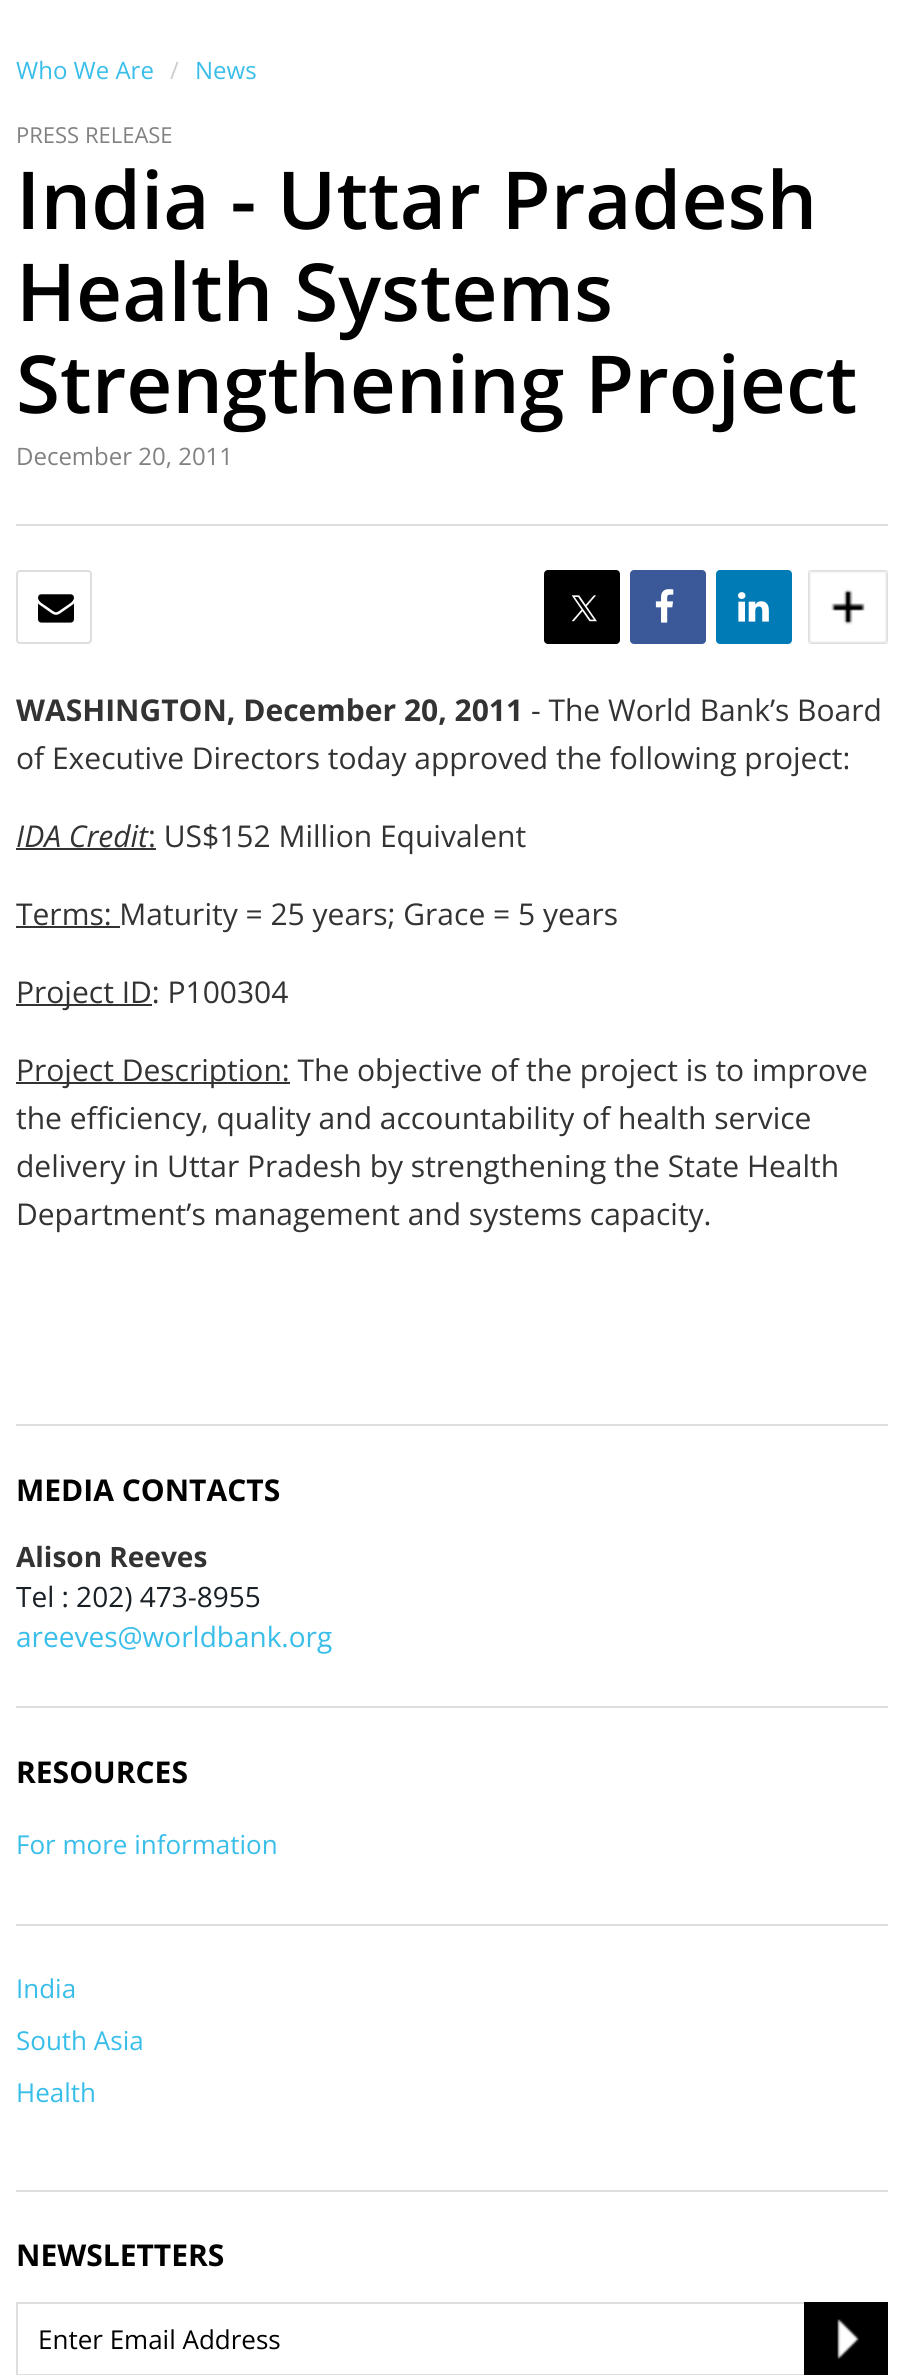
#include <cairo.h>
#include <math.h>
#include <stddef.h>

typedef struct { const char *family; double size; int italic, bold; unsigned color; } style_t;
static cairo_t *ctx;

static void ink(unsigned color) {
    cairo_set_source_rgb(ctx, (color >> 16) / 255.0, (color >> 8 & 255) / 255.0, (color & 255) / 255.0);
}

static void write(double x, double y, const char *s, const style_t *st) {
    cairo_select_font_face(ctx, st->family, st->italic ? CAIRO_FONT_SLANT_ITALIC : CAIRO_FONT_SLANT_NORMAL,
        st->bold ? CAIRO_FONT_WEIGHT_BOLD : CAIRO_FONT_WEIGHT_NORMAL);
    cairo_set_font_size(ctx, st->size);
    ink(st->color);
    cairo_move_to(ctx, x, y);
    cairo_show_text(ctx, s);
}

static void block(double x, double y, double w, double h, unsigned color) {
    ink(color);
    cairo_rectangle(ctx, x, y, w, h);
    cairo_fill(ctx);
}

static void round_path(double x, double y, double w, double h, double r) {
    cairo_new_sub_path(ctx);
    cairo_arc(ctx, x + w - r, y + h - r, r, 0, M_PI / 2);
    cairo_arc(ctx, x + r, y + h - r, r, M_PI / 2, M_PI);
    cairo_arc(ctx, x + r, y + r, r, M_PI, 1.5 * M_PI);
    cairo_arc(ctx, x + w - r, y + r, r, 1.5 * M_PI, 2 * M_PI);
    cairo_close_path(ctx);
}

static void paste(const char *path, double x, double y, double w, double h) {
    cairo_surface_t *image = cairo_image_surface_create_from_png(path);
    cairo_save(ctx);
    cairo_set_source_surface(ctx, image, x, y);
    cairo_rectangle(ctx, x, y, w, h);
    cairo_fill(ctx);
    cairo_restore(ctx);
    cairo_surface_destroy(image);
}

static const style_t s1 = {"Open Sans", 24, 0, 0, 0x39beea};
static const style_t s2 = {"Open Sans", 24, 0, 0, 0xcccccc};
static const style_t s3 = {"Open Sans", 22, 0, 0, 0x818181};
static const style_t s4 = {"Open Sans SemiBold", 80, 0, 0, 0x000000};
static const style_t s5 = {"Open Sans", 24, 0, 0, 0x818181};
static const style_t s6 = {"Open Sans", 30, 0, 1, 0x333333};
static const style_t s7 = {"Open Sans", 30, 0, 0, 0x333333};
static const style_t s8 = {"Open Sans", 30, 1, 0, 0x333333};
static const style_t s9 = {"Open Sans", 30, 0, 1, 0x000000};
static const style_t s10 = {"Open Sans", 28, 0, 1, 0x333333};
static const style_t s11 = {"Open Sans", 28, 0, 0, 0x181f25};
static const style_t s12 = {"Open Sans", 28, 0, 0, 0x39beea};
static const style_t s13 = {"Open Sans", 26, 0, 0, 0x39beea};
static const style_t s14 = {"Open Sans", 26, 0, 0, 0x000000};

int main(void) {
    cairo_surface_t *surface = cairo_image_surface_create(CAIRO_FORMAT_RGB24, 904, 2375);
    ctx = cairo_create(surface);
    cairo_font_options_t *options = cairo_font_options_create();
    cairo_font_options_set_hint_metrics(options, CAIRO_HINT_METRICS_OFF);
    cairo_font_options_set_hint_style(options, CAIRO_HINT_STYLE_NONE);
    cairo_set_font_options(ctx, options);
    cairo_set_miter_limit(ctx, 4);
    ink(0xffffff);
    cairo_paint(ctx);
    write(16, 79, "Who We Are", &s1);
    write(170, 79, "/", &s2);
    write(195, 79, "News", &s1);
    write(16, 143, "PRESS RELEASE", &s3);
    write(16, 229, "India - Uttar Pradesh", &s4);
    write(16, 321, "Health Systems", &s4);
    write(16, 413, "Strengthening Project", &s4);
    write(16, 465, "December 20, 2011", &s5);
    block(16, 524, 872, 2, 0xdedede);
    round_path(17, 571, 74, 72, 3);
    cairo_stroke(ctx);
    paste("pic1.png", 38, 594, 36, 29);
    ink(0x000000);
    round_path(544, 570, 76, 74, 4);
    cairo_fill(ctx);
    paste("pic2.png", 571, 595, 26, 27);
    ink(0x3b5998);
    round_path(630, 570, 76, 74, 4);
    cairo_fill(ctx);
    paste("pic3.png", 655, 589, 19, 34);
    ink(0x007bb6);
    round_path(716, 570, 76, 74, 4);
    cairo_fill(ctx);
    paste("pic4.png", 738, 592, 31, 30);
    paste("pic5.png", 808, 570, 80, 74);
    write(16, 721, "WASHINGTON, December 20, 2011", &s6);
    write(531, 721, "- The World Bank’s Board", &s7);
    write(16, 769, "of Executive Directors today approved the following project:", &s7);
    write(16, 847, "IDA Credit", &s8);
    block(16, 848, 140, 2, 0x333333);
    write(148, 847, ": US$152 Million Equivalent", &s7);
    block(16, 926, 104, 2, 0x333333);
    write(16, 925, "Terms: Maturity = 25 years; Grace = 5 years", &s7);
    block(16, 1004, 136, 2, 0x333333);
    write(16, 1003, "Project ID: P100304", &s7);
    block(16, 1082, 274, 2, 0x333333);
    write(16, 1081, "Project Description: The objective of the project is to improve", &s7);
    write(16, 1129, "the efficiency, quality and accountability of health service", &s7);
    write(16, 1177, "delivery in Uttar Pradesh by strengthening the State Health", &s7);
    write(16, 1225, "Department’s management and systems capacity.", &s7);
    block(16, 1424, 872, 2, 0xdedede);
    write(16, 1501, "MEDIA CONTACTS", &s9);
    write(16, 1567, "Alison Reeves", &s10);
    write(16, 1607, "Tel : 202) 473-8955", &s11);
    write(16, 1647, "areeves@worldbank.org", &s12);
    block(16, 1706, 872, 2, 0xdedede);
    write(16, 1783, "RESOURCES", &s9);
    write(16, 1854, "For more information", &s13);
    block(16, 1924, 872, 2, 0xdedede);
    write(16, 1998, "India", &s13);
    write(16, 2050, "South Asia", &s13);
    write(16, 2102, "Health", &s13);
    block(16, 2190, 872, 2, 0xdedede);
    write(16, 2266, "NEWSLETTERS", &s9);
    cairo_rectangle(ctx, 17, 2303, 870, 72);
    ink(0xdedede);
    cairo_stroke(ctx);
    write(38, 2349, "Enter Email Address", &s14);
    paste("pic6.png", 804, 2302, 84, 73);
    cairo_surface_write_to_png(surface, "screenshot.png");
    cairo_font_options_destroy(options);
    cairo_destroy(ctx);
    cairo_surface_destroy(surface);
    return 0;
}
